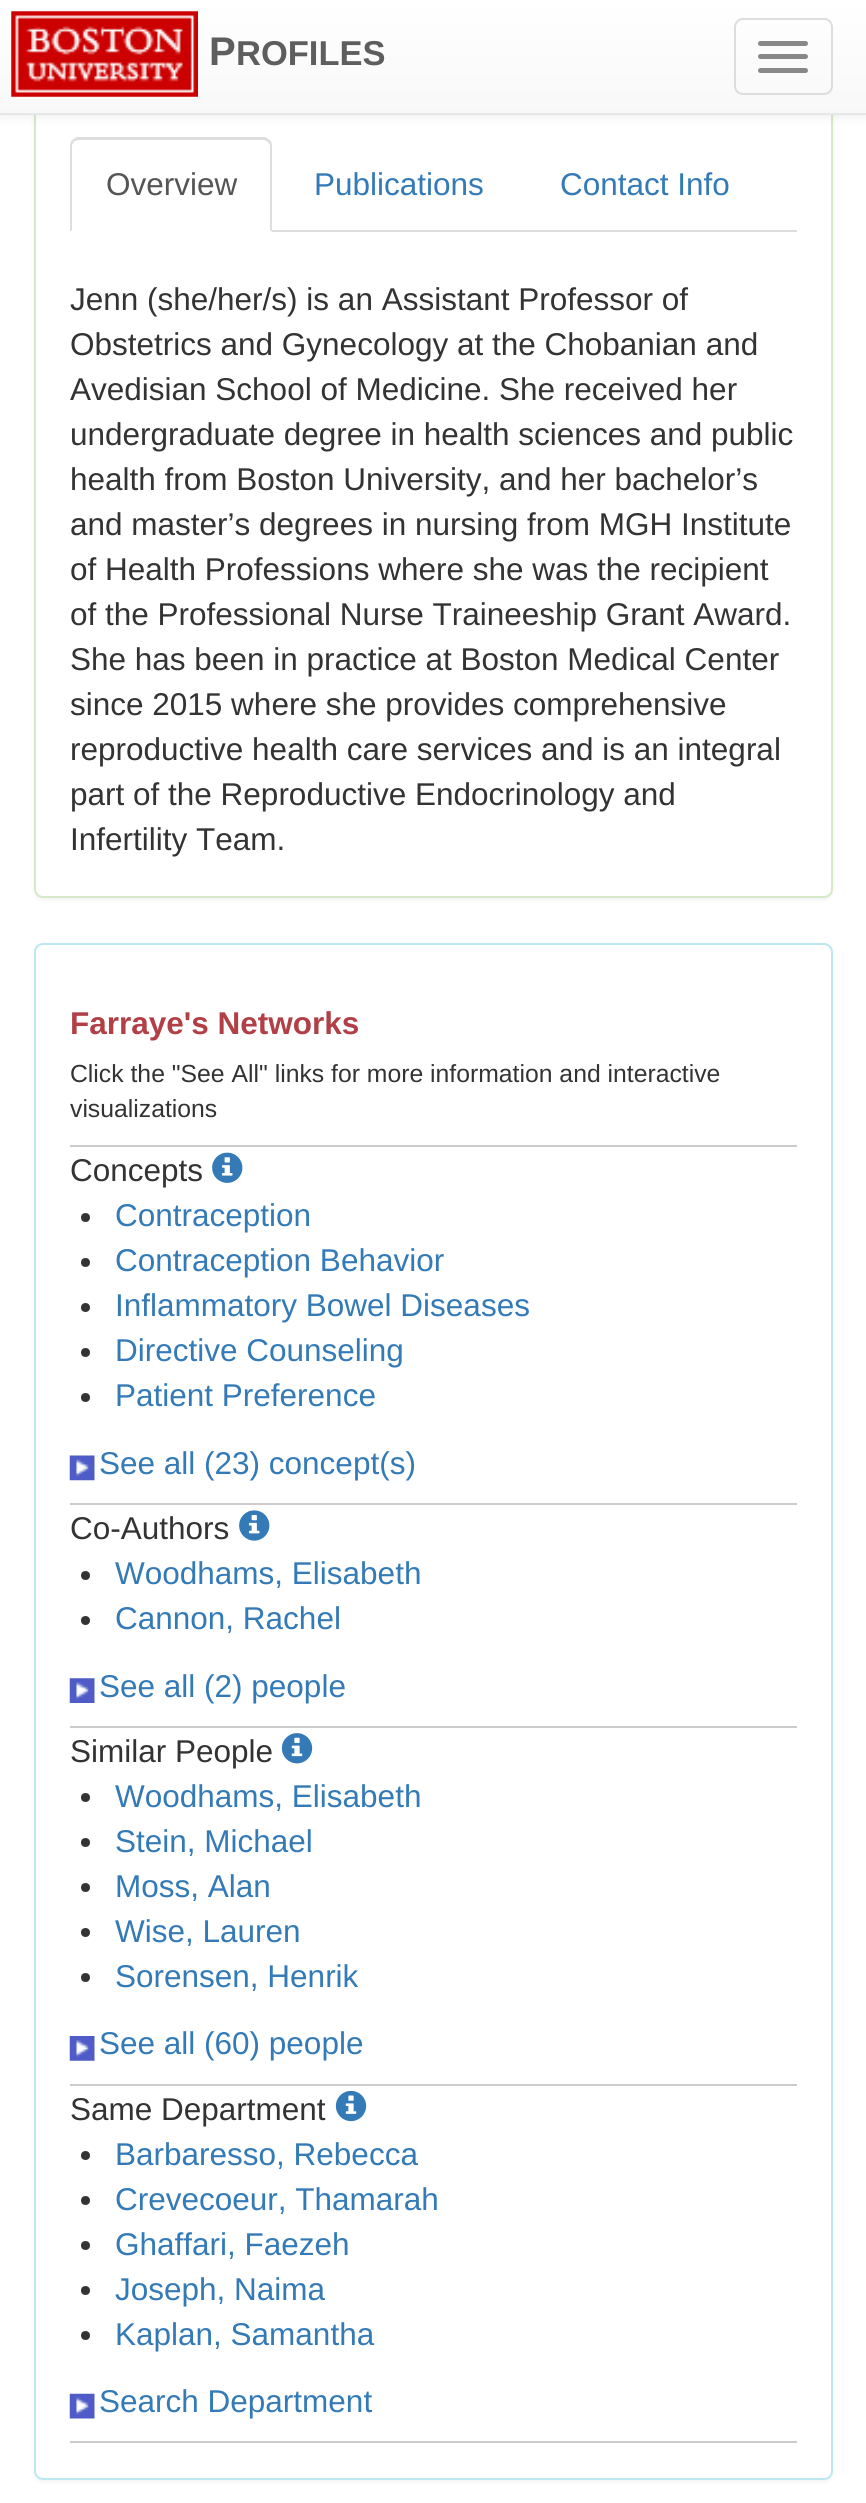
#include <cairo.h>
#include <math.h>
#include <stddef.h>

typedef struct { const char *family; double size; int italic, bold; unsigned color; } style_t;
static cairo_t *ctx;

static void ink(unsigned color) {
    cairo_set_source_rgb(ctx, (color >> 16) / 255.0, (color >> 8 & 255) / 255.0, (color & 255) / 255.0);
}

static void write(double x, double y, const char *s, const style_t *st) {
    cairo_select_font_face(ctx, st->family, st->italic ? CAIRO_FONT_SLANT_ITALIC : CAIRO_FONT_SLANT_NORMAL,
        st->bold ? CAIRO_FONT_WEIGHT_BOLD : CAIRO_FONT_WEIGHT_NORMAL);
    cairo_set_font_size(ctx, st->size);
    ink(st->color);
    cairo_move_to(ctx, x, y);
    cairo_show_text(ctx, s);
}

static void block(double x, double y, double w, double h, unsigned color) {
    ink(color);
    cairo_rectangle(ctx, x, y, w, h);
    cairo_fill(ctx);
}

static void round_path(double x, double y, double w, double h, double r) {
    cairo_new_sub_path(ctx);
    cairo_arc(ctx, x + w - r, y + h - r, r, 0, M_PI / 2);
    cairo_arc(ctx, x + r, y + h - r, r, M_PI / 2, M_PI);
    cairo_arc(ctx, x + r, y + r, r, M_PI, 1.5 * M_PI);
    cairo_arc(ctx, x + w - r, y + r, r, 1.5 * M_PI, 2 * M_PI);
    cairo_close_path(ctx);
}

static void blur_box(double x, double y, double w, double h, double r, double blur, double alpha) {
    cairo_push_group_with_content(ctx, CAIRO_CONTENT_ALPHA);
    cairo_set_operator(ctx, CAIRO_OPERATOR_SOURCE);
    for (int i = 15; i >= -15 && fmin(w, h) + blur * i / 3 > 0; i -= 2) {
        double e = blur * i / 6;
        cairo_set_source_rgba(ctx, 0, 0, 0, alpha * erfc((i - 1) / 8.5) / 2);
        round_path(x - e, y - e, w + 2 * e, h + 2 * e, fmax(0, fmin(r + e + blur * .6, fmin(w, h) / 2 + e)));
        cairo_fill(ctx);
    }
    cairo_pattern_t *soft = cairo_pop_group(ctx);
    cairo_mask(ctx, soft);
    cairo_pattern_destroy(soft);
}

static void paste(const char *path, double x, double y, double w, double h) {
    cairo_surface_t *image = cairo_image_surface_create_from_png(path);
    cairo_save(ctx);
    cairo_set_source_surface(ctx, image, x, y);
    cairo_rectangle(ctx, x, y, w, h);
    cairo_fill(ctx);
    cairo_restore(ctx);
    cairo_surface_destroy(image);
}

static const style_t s1 = {"Liberation Sans", 40, 0, 1, 0x5e5e5e};
static const style_t s2 = {"Liberation Sans", 34.5, 0, 1, 0x5e5e5e};
static const style_t s3 = {"Liberation Sans", 31.5, 0, 0, 0x555555};
static const style_t s4 = {"Liberation Sans", 31.5, 0, 0, 0x337ab7};
static const style_t s5 = {"Liberation Sans", 31.5, 0, 0, 0x333333};
static const style_t s6 = {"Liberation Sans", 31.5, 0, 1, 0xb23f45};
static const style_t s7 = {"Liberation Sans", 24.75, 0, 0, 0x333333};

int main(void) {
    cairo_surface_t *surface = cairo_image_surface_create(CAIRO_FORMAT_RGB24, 866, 2503);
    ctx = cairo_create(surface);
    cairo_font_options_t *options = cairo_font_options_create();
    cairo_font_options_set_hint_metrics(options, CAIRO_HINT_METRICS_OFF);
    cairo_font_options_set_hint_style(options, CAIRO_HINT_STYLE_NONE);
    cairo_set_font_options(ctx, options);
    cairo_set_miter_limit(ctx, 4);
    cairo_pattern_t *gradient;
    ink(0xffffff);
    cairo_paint(ctx);
    ink(0x000000);
    blur_box(34, -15, 799, 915, 9, 2, 0.05);
    ink(0xffffff);
    round_path(35, -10, 797, 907, 8);
    cairo_fill_preserve(ctx);
    ink(0xd6e9c6);
    cairo_stroke(ctx);
    ink(0x000000);
    blur_box(0, 2, 866, 115, 0, 5.5, 0.07);
    gradient = cairo_pattern_create_linear(433, 0, 433, 113);
    cairo_pattern_add_color_stop_rgba(gradient, 0, 1, 1, 1, 1);
    cairo_pattern_add_color_stop_rgba(gradient, 1, 0.973, 0.973, 0.973, 1);
    cairo_set_source(ctx, gradient);
    cairo_pattern_destroy(gradient);
    cairo_rectangle(ctx, 0, 0, 866, 113);
    cairo_fill(ctx);
    block(0, 113, 866, 2, 0xe7e7e7);
    paste("pic1.png", 11, 11, 187, 86);
    write(209, 65, "P", &s1);
    write(236, 65, "ROFILES", &s2);
    round_path(735, 19, 97, 75, 8);
    ink(0xdddddd);
    cairo_stroke(ctx);
    ink(0x888888);
    round_path(758, 41, 50, 5, 2.5);
    cairo_fill(ctx);
    round_path(758, 54, 50, 5, 2.5);
    cairo_fill(ctx);
    round_path(758, 68, 50, 5, 2.5);
    cairo_fill(ctx);
    block(272, 230, 525, 2, 0xdddddd);
    cairo_new_path(ctx);
    cairo_move_to(ctx, 79, 140);
    cairo_curve_to(ctx, 77, 140, 75, 141, 74, 142);
    cairo_line_to(ctx, 72, 140);
    cairo_curve_to(ctx, 74, 139, 75, 138, 77, 137);
    cairo_line_to(ctx, 265, 137);
    cairo_curve_to(ctx, 267, 138, 268, 139, 270, 140);
    cairo_line_to(ctx, 268, 142);
    cairo_curve_to(ctx, 267, 141, 265, 140, 263, 140);
    cairo_close_path(ctx);
    cairo_fill(ctx);
    cairo_new_path(ctx);
    cairo_move_to(ctx, 270, 140);
    cairo_curve_to(ctx, 271, 141, 272, 144, 272, 146);
    cairo_line_to(ctx, 272, 232);
    cairo_line_to(ctx, 270, 230);
    cairo_line_to(ctx, 270, 145);
    cairo_line_to(ctx, 268, 142);
    cairo_close_path(ctx);
    cairo_fill(ctx);
    cairo_new_path(ctx);
    cairo_move_to(ctx, 70, 232);
    cairo_line_to(ctx, 70, 146);
    cairo_curve_to(ctx, 70, 144, 71, 141, 72, 140);
    cairo_line_to(ctx, 74, 142);
    cairo_line_to(ctx, 72, 145);
    cairo_line_to(ctx, 72, 230);
    cairo_close_path(ctx);
    cairo_fill(ctx);
    write(106, 195, "Overview", &s3);
    write(314, 195, "Publications", &s4);
    write(560, 195, "Contact Info", &s4);
    write(70, 310, "Jenn (she/her/s) is an Assistant Professor of", &s5);
    write(70, 355, "Obstetrics and Gynecology at the Chobanian and", &s5);
    write(70, 400, "Avedisian School of Medicine. She received her", &s5);
    write(70, 445, "undergraduate degree in health sciences and public", &s5);
    write(70, 490, "health from Boston University, and her bachelor’s", &s5);
    write(70, 535, "and master’s degrees in nursing from MGH Institute", &s5);
    write(70, 580, "of Health Professions where she was the recipient", &s5);
    write(70, 625, "of the Professional Nurse Traineeship Grant Award.", &s5);
    write(70, 670, "She has been in practice at Boston Medical Center", &s5);
    write(70, 715, "since 2015 where she provides comprehensive", &s5);
    write(70, 760, "reproductive health care services and is an integral", &s5);
    write(70, 805, "part of the Reproductive Endocrinology and", &s5);
    write(70, 850, "Infertility Team.", &s5);
    ink(0x000000);
    blur_box(34, 945, 799, 1537, 9, 2, 0.05);
    ink(0xffffff);
    round_path(35, 944, 797, 1535, 8);
    cairo_fill_preserve(ctx);
    ink(0xbce8f1);
    cairo_stroke(ctx);
    write(70, 1034, "Farraye's Networks", &s6);
    write(70, 1082, "Click the \"See All\" links for more information and interactive", &s7);
    write(70, 1117, "visualizations", &s7);
    block(70, 1145, 727, 2, 0xcccccc);
    write(70, 1181, "Concepts", &s5);
    paste("pic2.png", 212, 1152, 31, 31);
    cairo_arc(ctx, 85.5, 1217.5, 4.5, 0, 2 * M_PI);
    cairo_fill(ctx);
    write(115, 1226, "Contraception", &s4);
    ink(0x333333);
    cairo_new_path(ctx);
    cairo_arc(ctx, 85.5, 1262.5, 4.5, 0, 2 * M_PI);
    cairo_fill(ctx);
    write(115, 1271, "Contraception Behavior", &s4);
    ink(0x333333);
    cairo_new_path(ctx);
    cairo_arc(ctx, 85.5, 1307.5, 4.5, 0, 2 * M_PI);
    cairo_fill(ctx);
    write(115, 1316, "Inflammatory Bowel Diseases", &s4);
    ink(0x333333);
    cairo_new_path(ctx);
    cairo_arc(ctx, 85.5, 1352.5, 4.5, 0, 2 * M_PI);
    cairo_fill(ctx);
    write(115, 1361, "Directive Counseling", &s4);
    ink(0x333333);
    cairo_new_path(ctx);
    cairo_arc(ctx, 85.5, 1397.5, 4.5, 0, 2 * M_PI);
    cairo_fill(ctx);
    write(115, 1406, "Patient Preference", &s4);
    paste("pic3.png", 69, 1455, 26, 26);
    write(99, 1474, "See all (23) concept(s)", &s4);
    block(70, 1503, 727, 2, 0xcccccc);
    write(70, 1539, "Co-Authors", &s5);
    paste("pic4.png", 239, 1510, 31, 31);
    cairo_arc(ctx, 85.5, 1575.5, 4.5, 0, 2 * M_PI);
    cairo_fill(ctx);
    write(115, 1584, "Woodhams, Elisabeth", &s4);
    ink(0x333333);
    cairo_new_path(ctx);
    cairo_arc(ctx, 85.5, 1620.5, 4.5, 0, 2 * M_PI);
    cairo_fill(ctx);
    write(115, 1629, "Cannon, Rachel", &s4);
    paste("pic5.png", 69, 1678, 26, 25);
    write(99, 1697, "See all (2) people", &s4);
    block(70, 1726, 727, 2, 0xcccccc);
    write(70, 1762, "Similar People", &s5);
    paste("pic6.png", 281, 1733, 32, 31);
    cairo_arc(ctx, 85.5, 1797.5, 4.5, 0, 2 * M_PI);
    cairo_fill(ctx);
    write(115, 1807, "Woodhams, Elisabeth", &s4);
    ink(0x333333);
    cairo_new_path(ctx);
    cairo_arc(ctx, 85.5, 1842.5, 4.5, 0, 2 * M_PI);
    cairo_fill(ctx);
    write(115, 1852, "Stein, Michael", &s4);
    ink(0x333333);
    cairo_new_path(ctx);
    cairo_arc(ctx, 85.5, 1887.5, 4.5, 0, 2 * M_PI);
    cairo_fill(ctx);
    write(115, 1897, "Moss, Alan", &s4);
    ink(0x333333);
    cairo_new_path(ctx);
    cairo_arc(ctx, 85.5, 1932.5, 4.5, 0, 2 * M_PI);
    cairo_fill(ctx);
    write(115, 1942, "Wise, Lauren", &s4);
    ink(0x333333);
    cairo_new_path(ctx);
    cairo_arc(ctx, 85.5, 1977.5, 4.5, 0, 2 * M_PI);
    cairo_fill(ctx);
    write(115, 1987, "Sorensen, Henrik", &s4);
    paste("pic7.png", 69, 2036, 26, 25);
    write(99, 2054, "See all (60) people", &s4);
    block(70, 2084, 727, 2, 0xcccccc);
    write(70, 2120, "Same Department", &s5);
    paste("pic8.png", 335, 2090, 32, 32);
    cairo_arc(ctx, 85.5, 2155.5, 4.5, 0, 2 * M_PI);
    cairo_fill(ctx);
    write(115, 2165, "Barbaresso, Rebecca", &s4);
    ink(0x333333);
    cairo_new_path(ctx);
    cairo_arc(ctx, 85.5, 2200.5, 4.5, 0, 2 * M_PI);
    cairo_fill(ctx);
    write(115, 2210, "Crevecoeur, Thamarah", &s4);
    ink(0x333333);
    cairo_new_path(ctx);
    cairo_arc(ctx, 85.5, 2245.5, 4.5, 0, 2 * M_PI);
    cairo_fill(ctx);
    write(115, 2255, "Ghaffari, Faezeh", &s4);
    ink(0x333333);
    cairo_new_path(ctx);
    cairo_arc(ctx, 85.5, 2290.5, 4.5, 0, 2 * M_PI);
    cairo_fill(ctx);
    write(115, 2300, "Joseph, Naima", &s4);
    ink(0x333333);
    cairo_new_path(ctx);
    cairo_arc(ctx, 85.5, 2335.5, 4.5, 0, 2 * M_PI);
    cairo_fill(ctx);
    write(115, 2345, "Kaplan, Samantha", &s4);
    paste("pic9.png", 69, 2393, 26, 26);
    write(99, 2412, "Search Department", &s4);
    block(70, 2441, 727, 2, 0xcccccc);
    cairo_surface_write_to_png(surface, "screenshot.png");
    cairo_font_options_destroy(options);
    cairo_destroy(ctx);
    cairo_surface_destroy(surface);
    return 0;
}
